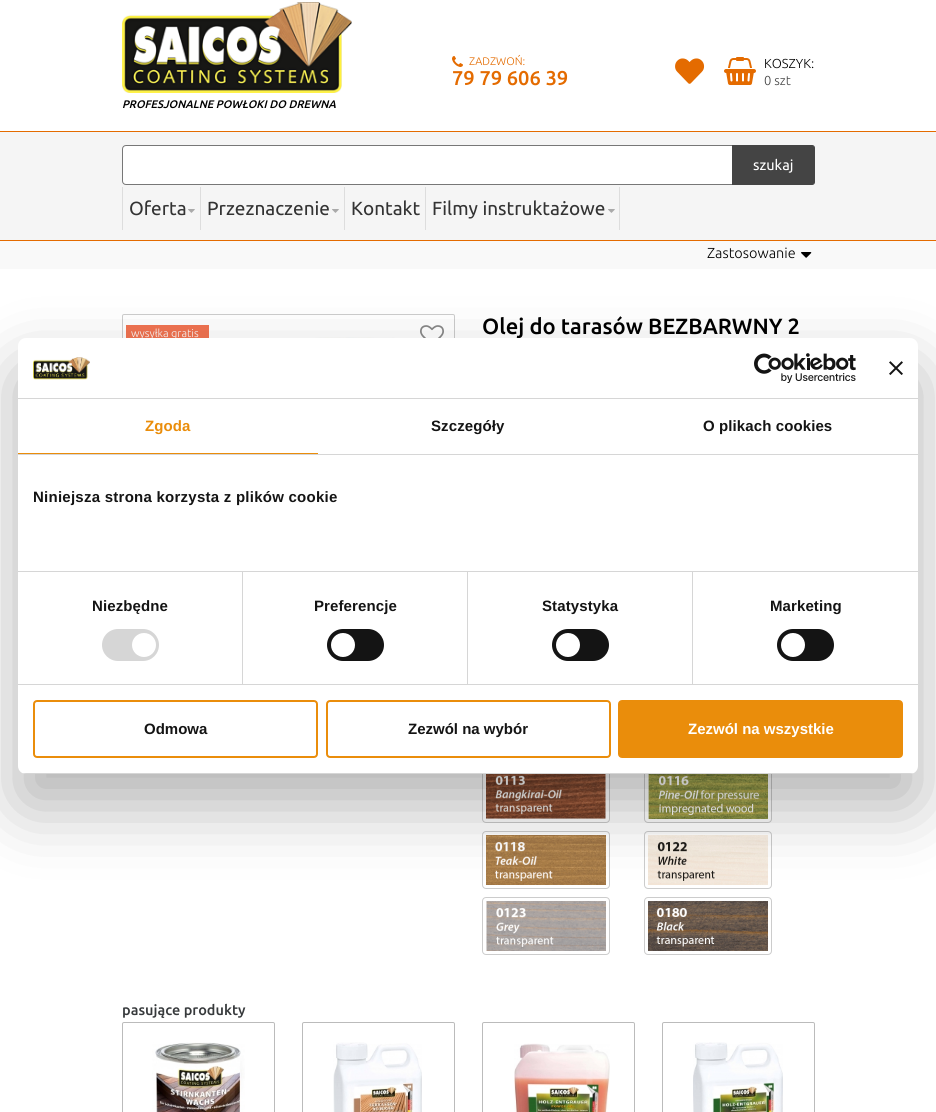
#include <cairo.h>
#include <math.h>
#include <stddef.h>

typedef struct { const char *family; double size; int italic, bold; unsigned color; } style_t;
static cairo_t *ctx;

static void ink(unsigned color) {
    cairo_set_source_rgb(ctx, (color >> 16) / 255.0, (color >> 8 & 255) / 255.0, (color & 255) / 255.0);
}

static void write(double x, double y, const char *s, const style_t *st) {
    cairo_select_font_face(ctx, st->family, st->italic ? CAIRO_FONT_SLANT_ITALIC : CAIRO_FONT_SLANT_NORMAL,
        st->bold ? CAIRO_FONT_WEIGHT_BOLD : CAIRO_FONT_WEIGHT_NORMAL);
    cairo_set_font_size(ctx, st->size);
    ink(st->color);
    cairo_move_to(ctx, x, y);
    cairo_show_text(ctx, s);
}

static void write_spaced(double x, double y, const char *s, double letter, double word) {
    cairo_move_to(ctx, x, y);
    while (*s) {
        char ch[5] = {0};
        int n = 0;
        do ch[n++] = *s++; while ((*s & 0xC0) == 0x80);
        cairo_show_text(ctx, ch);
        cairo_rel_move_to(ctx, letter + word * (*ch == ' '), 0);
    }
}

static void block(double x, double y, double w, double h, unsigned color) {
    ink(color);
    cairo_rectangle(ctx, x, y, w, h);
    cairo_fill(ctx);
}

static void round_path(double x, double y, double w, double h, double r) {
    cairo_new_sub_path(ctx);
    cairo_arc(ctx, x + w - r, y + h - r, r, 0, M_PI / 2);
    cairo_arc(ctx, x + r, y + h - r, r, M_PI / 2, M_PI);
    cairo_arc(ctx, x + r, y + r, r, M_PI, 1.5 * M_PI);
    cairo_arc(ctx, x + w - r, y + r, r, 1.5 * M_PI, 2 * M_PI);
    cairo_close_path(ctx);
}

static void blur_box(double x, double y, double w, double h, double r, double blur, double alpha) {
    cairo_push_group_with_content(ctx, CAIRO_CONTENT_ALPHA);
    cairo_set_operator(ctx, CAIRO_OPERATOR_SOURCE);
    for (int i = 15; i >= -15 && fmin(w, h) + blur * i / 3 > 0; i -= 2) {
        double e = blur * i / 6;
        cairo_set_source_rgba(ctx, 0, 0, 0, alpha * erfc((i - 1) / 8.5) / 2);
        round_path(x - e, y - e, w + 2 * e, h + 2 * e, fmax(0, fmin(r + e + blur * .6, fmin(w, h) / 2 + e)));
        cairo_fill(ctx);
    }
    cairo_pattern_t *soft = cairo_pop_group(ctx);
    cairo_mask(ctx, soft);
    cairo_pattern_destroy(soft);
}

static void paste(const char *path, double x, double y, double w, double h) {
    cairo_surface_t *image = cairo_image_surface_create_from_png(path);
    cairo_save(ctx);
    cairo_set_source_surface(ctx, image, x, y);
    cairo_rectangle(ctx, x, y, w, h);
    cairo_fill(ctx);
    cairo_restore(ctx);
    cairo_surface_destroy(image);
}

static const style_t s1 = {"Ubuntu Light", 11, 0, 0, 0xe46b00};
static const style_t s2 = {"Ubuntu Medium", 20, 0, 0, 0xe46b00};
static const style_t s3 = {"Ubuntu Light", 13, 0, 0, 0x000000};
static const style_t s4 = {"Ubuntu Light", 13, 0, 0, 0x444444};
static const style_t s5 = {"Ubuntu Medium", 11, 1, 0, 0x000000};
static const style_t s6 = {"Ubuntu", 14.5, 0, 0, 0xffffff};
static const style_t s7 = {"Ubuntu", 19, 0, 0, 0x333333};
static const style_t s8 = {"Ubuntu Light", 14.5, 0, 0, 0x000000};
static const style_t s9 = {"Ubuntu Light", 11, 0, 0, 0xffffff};
static const style_t s10 = {"Ubuntu Medium", 22, 0, 0, 0x000000};
static const style_t s11 = {"Ubuntu Medium", 14.5, 0, 0, 0x373a3c};
static const style_t s12 = {"Liberation Sans", 15, 0, 1, 0x141414};
static const style_t s13 = {"Liberation Sans", 15, 0, 1, 0xffffff};

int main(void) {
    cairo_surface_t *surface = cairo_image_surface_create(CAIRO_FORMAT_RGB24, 936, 1112);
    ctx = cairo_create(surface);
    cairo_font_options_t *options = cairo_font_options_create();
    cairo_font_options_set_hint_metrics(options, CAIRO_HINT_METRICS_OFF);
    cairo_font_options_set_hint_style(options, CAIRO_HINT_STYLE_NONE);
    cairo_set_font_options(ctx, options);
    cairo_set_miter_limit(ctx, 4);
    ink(0xffffff);
    cairo_paint(ctx);
    paste("pic1.png", 452, 56, 11, 11);
    write(469, 65, "ZADZWOŃ:", &s1);
    write(452, 85, "79 79 606 39", &s2);
    paste("pic2.png", 675, 58, 30, 26);
    paste("pic3.png", 724, 57, 32, 28);
    write(764, 68, "KOSZYK:", &s3);
    write(764, 85, "0 szt", &s4);
    paste("pic4.png", 122, 2, 230, 91);
    write(122, 108, "PROFESJONALNE POWŁOKI DO DREWNA", &s5);
    block(0, 132, 936, 108, 0xf5f5f5);
    block(0, 131, 936, 1, 0xe46b00);
    block(0, 240, 936, 1, 0xe46b00);
    ink(0xffffff);
    cairo_new_path(ctx);
    cairo_move_to(ctx, 126, 145.5);
    cairo_line_to(ctx, 732.5, 145.5);
    cairo_line_to(ctx, 732.5, 184.5);
    cairo_line_to(ctx, 126, 184.5);
    cairo_curve_to(ctx, 124, 184.5, 122.5, 183, 122.5, 181);
    cairo_line_to(ctx, 122.5, 149);
    cairo_curve_to(ctx, 122.5, 147, 124, 145.5, 126, 145.5);
    cairo_close_path(ctx);
    cairo_fill_preserve(ctx);
    ink(0x777777);
    cairo_set_line_width(ctx, 1);
    cairo_stroke(ctx);
    ink(0x444444);
    cairo_new_path(ctx);
    cairo_move_to(ctx, 732.5, 145.5);
    cairo_line_to(ctx, 812, 145.5);
    cairo_curve_to(ctx, 813.5, 145.5, 814.5, 146.5, 814.5, 148);
    cairo_line_to(ctx, 814.5, 182);
    cairo_curve_to(ctx, 814.5, 183.5, 813.5, 184.5, 812, 184.5);
    cairo_line_to(ctx, 732.5, 184.5);
    cairo_close_path(ctx);
    cairo_fill_preserve(ctx);
    cairo_stroke(ctx);
    write(753, 170, "szukaj", &s6);
    block(200, 187, 1, 43, 0xdddddd);
    block(122, 187, 1, 43, 0xdddddd);
    write(129, 215, "Oferta", &s7);
    paste("pic5.png", 188, 209, 7, 4);
    write(207, 215, "Przeznaczenie", &s7);
    paste("pic5.png", 332, 209, 7, 4);
    block(425, 187, 1, 43, 0xdddddd);
    block(344, 187, 1, 43, 0xdddddd);
    write(351, 215, "Kontakt", &s7);
    block(619, 187, 1, 43, 0xdddddd);
    write(432, 215, "Filmy instruktażowe", &s7);
    paste("pic5.png", 608, 209, 7, 4);
    block(0, 241, 936, 28, 0xf9f9f9);
    write(707, 258, "Zastosowanie", &s8);
    paste("pic6.png", 801, 252, 11, 6);
    round_path(122.5, 314.5, 332, 451, 1.5);
    ink(0xcccccc);
    cairo_stroke(ctx);
    paste("pic8.png", 124, 337, 323, 1);
    block(126, 325, 83, 13, 0xf17351);
    write(131, 337, "wysyłka gratis", &s9);
    paste("pic7.png", 420, 325, 24, 13);
    write(482, 334, "Olej do tarasów BEZBARWNY 2", &s10);
    round_path(482.5, 765.5, 127, 57, 3.5);
    ink(0xcccccc);
    cairo_stroke(ctx);
    paste("pic9.png", 486, 774, 120, 45);
    round_path(644.5, 765.5, 127, 57, 3.5);
    cairo_stroke(ctx);
    paste("pic10.png", 648, 774, 120, 45);
    round_path(482.5, 831.5, 127, 57, 3.5);
    cairo_stroke(ctx);
    paste("pic11.png", 486, 835, 120, 50);
    round_path(644.5, 831.5, 127, 57, 3.5);
    cairo_stroke(ctx);
    paste("pic12.png", 648, 835, 120, 50);
    round_path(482.5, 897.5, 127, 57, 3.5);
    cairo_stroke(ctx);
    paste("pic13.png", 486, 901, 120, 50);
    round_path(644.5, 897.5, 127, 57, 3.5);
    cairo_stroke(ctx);
    paste("pic14.png", 648, 901, 120, 50);
    write(122, 1015, "pasujące produkty", &s11);
    round_path(122.5, 1022.5, 152, 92, 1.5);
    ink(0xbbbbbb);
    cairo_stroke(ctx);
    paste("pic15.png", 152, 1042, 93, 70);
    round_path(302.5, 1022.5, 152, 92, 1.5);
    cairo_stroke(ctx);
    paste("pic16.png", 333, 1042, 89, 70);
    round_path(482.5, 1022.5, 152, 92, 1.5);
    cairo_stroke(ctx);
    paste("pic17.png", 514, 1043, 96, 69);
    round_path(662.5, 1022.5, 152, 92, 1.5);
    cairo_stroke(ctx);
    paste("pic18.png", 693, 1042, 90, 70);
    ink(0x000000);
    blur_box(18, 370, 900, 436, 8, 34, 0.3);
    ink(0xffffff);
    round_path(18, 338, 900, 436, 8);
    cairo_fill(ctx);
    block(18, 398, 900, 1, 0xd6d6d6);
    paste("pic19.png", 33, 357, 57, 23);
    paste("pic20.png", 754, 353, 102, 30);
    paste("pic21.png", 889, 361, 14, 14);
    block(18, 454, 900, 1, 0xd6d6d6);
    block(18, 453, 300, 1, 0xea8d0b);
    cairo_select_font_face(ctx, "Liberation Sans", CAIRO_FONT_SLANT_NORMAL, CAIRO_FONT_WEIGHT_BOLD);
    cairo_set_font_size(ctx, 15);
    write_spaced(145, 431, "Zgoda", 0.1, 0);
    ink(0x141414);
    write_spaced(431, 431, "Szczegóły", 0.1, 0);
    write_spaced(703, 431, "O plikach cookies", 0.1, 0);
    block(18, 571, 900, 1, 0xd6d6d6);
    ink(0x141414);
    write_spaced(33, 502, "Niniejsza strona korzysta z plików cookie", 0.25, 0);
    block(18, 684, 900, 1, 0xd6d6d6);
    block(242, 572, 1, 112, 0xd6d6d6);
    ink(0x141414);
    write_spaced(92, 611, "Niezbędne", 0.1, 0);
    ink(0xd6d6d6);
    round_path(102, 629, 57, 32, 16);
    cairo_fill(ctx);
    ink(0xffffff);
    cairo_arc(ctx, 144, 645, 12, 0, 2 * M_PI);
    cairo_fill(ctx);
    block(467, 572, 1, 112, 0xd6d6d6);
    ink(0x141414);
    write_spaced(314, 611, "Preferencje", 0.1, 0);
    round_path(327, 629, 57, 32, 16);
    cairo_fill(ctx);
    ink(0xffffff);
    cairo_arc(ctx, 343, 645, 12, 0, 2 * M_PI);
    cairo_fill(ctx);
    block(692, 572, 1, 112, 0xd6d6d6);
    ink(0x141414);
    write_spaced(542, 611, "Statystyka", 0.1, 0);
    round_path(552, 629, 57, 32, 16);
    cairo_fill(ctx);
    ink(0xffffff);
    cairo_arc(ctx, 568, 645, 12, 0, 2 * M_PI);
    cairo_fill(ctx);
    ink(0x141414);
    write_spaced(770, 611, "Marketing", 0.1, 0);
    round_path(777, 629, 57, 32, 16);
    cairo_fill(ctx);
    ink(0xffffff);
    cairo_arc(ctx, 793, 645, 12, 0, 2 * M_PI);
    cairo_fill(ctx);
    cairo_save(ctx);
    round_path(18, 338, 900, 436, 8);
    cairo_clip(ctx);
    block(18, 773, 900, 1, 0xd6d6d6);
    cairo_restore(ctx);
    round_path(34, 701, 283, 56, 3);
    ink(0xea8d0b);
    cairo_set_line_width(ctx, 2);
    cairo_stroke(ctx);
    write(144, 734, "Odmowa", &s12);
    round_path(327, 701, 283, 56, 3);
    ink(0xea8d0b);
    cairo_stroke(ctx);
    write(408, 734, "Zezwól na wybór", &s12);
    ink(0xea8d0b);
    round_path(619, 701, 283, 56, 3);
    cairo_fill_preserve(ctx);
    cairo_stroke(ctx);
    write(688, 734, "Zezwól na wszystkie", &s13);
    cairo_surface_write_to_png(surface, "screenshot.png");
    cairo_font_options_destroy(options);
    cairo_destroy(ctx);
    cairo_surface_destroy(surface);
    return 0;
}
